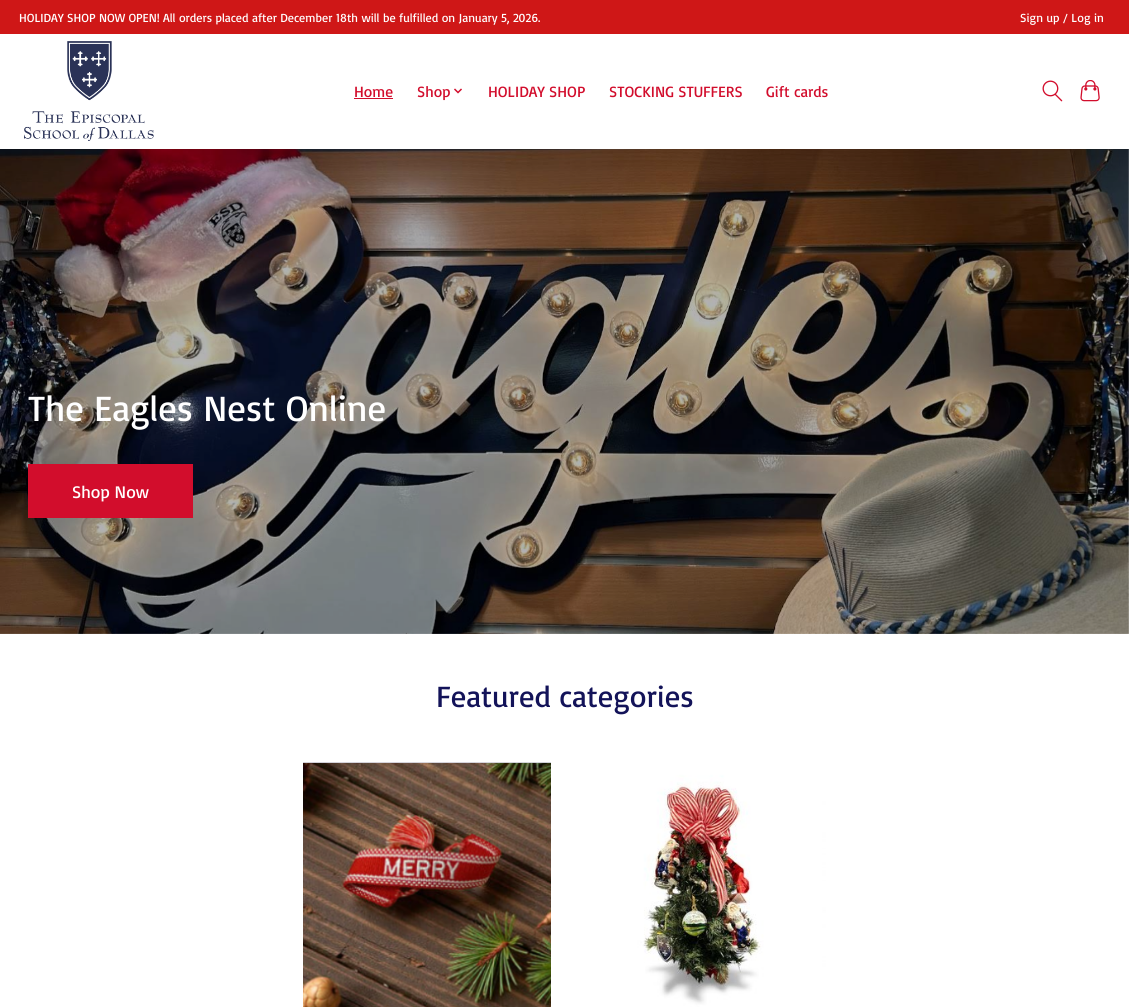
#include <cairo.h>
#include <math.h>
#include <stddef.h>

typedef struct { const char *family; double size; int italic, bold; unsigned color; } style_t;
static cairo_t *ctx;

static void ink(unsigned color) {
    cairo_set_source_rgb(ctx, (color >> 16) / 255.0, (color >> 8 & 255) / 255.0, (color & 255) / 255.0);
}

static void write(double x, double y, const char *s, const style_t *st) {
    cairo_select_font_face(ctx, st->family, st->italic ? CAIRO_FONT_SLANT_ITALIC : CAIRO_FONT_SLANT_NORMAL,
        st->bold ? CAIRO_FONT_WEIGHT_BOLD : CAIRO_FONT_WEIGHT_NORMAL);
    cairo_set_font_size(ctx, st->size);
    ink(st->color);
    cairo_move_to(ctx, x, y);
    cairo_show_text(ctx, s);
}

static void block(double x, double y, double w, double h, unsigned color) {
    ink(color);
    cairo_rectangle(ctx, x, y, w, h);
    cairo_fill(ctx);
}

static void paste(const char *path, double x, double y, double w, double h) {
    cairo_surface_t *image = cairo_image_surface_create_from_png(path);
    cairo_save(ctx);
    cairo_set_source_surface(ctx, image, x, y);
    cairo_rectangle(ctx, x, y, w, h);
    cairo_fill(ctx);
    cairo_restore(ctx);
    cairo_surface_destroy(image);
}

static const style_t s1 = {"Basic", 12.2, 0, 0, 0xffffff};
static const style_t s2 = {"Basic", 15.5, 0, 0, 0xd20d2c};
static const style_t s3 = {"Basic", 36.5, 0, 0, 0xffffff};
static const style_t s4 = {"Basic", 17.5, 0, 0, 0xffffff};
static const style_t s5 = {"Basic", 30.5, 0, 0, 0x131359};

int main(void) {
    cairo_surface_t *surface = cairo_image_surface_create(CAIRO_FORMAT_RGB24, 1129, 1007);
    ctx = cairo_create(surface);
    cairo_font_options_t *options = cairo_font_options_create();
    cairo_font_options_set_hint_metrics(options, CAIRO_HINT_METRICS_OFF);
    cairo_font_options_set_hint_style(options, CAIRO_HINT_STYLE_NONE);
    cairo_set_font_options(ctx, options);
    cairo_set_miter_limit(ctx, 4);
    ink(0xffffff);
    cairo_paint(ctx);
    block(0, 0, 1129, 34, 0xcf1717);
    write(19, 22, "HOLIDAY SHOP NOW OPEN! All orders placed after December 18th will be fulfilled on January 5, 2026.", &s1);
    write(1020, 22, "Sign up / Log in", &s1);
    paste("pic1.png", 24, 41, 130, 100);
    write(354, 97, "Home", &s2);
    block(354, 98, 39, 1, 0xd20d2c);
    write(417, 97, "Shop", &s2);
    paste("pic2.png", 454, 88, 8, 6);
    write(488, 97, "HOLIDAY SHOP", &s2);
    write(609, 97, "STOCKING STUFFERS", &s2);
    write(766, 97, "Gift cards", &s2);
    paste("pic3.png", 1042, 80, 21, 22);
    paste("pic4.png", 1080, 80, 20, 22);
    paste("pic5.png", 0, 149, 1129, 485);
    write(28, 421, "The Eagles Nest Online", &s3);
    block(28, 464, 165, 54, 0xd20d2c);
    write(72, 498, "Shop Now", &s4);
    write(436, 707, "Featured categories", &s5);
    block(303, 762, 248, 1, 0xdcdce6);
    paste("pic6.png", 303, 762, 248, 245);
    paste("pic7.png", 578, 762, 248, 245);
    cairo_surface_write_to_png(surface, "screenshot.png");
    cairo_font_options_destroy(options);
    cairo_destroy(ctx);
    cairo_surface_destroy(surface);
    return 0;
}
